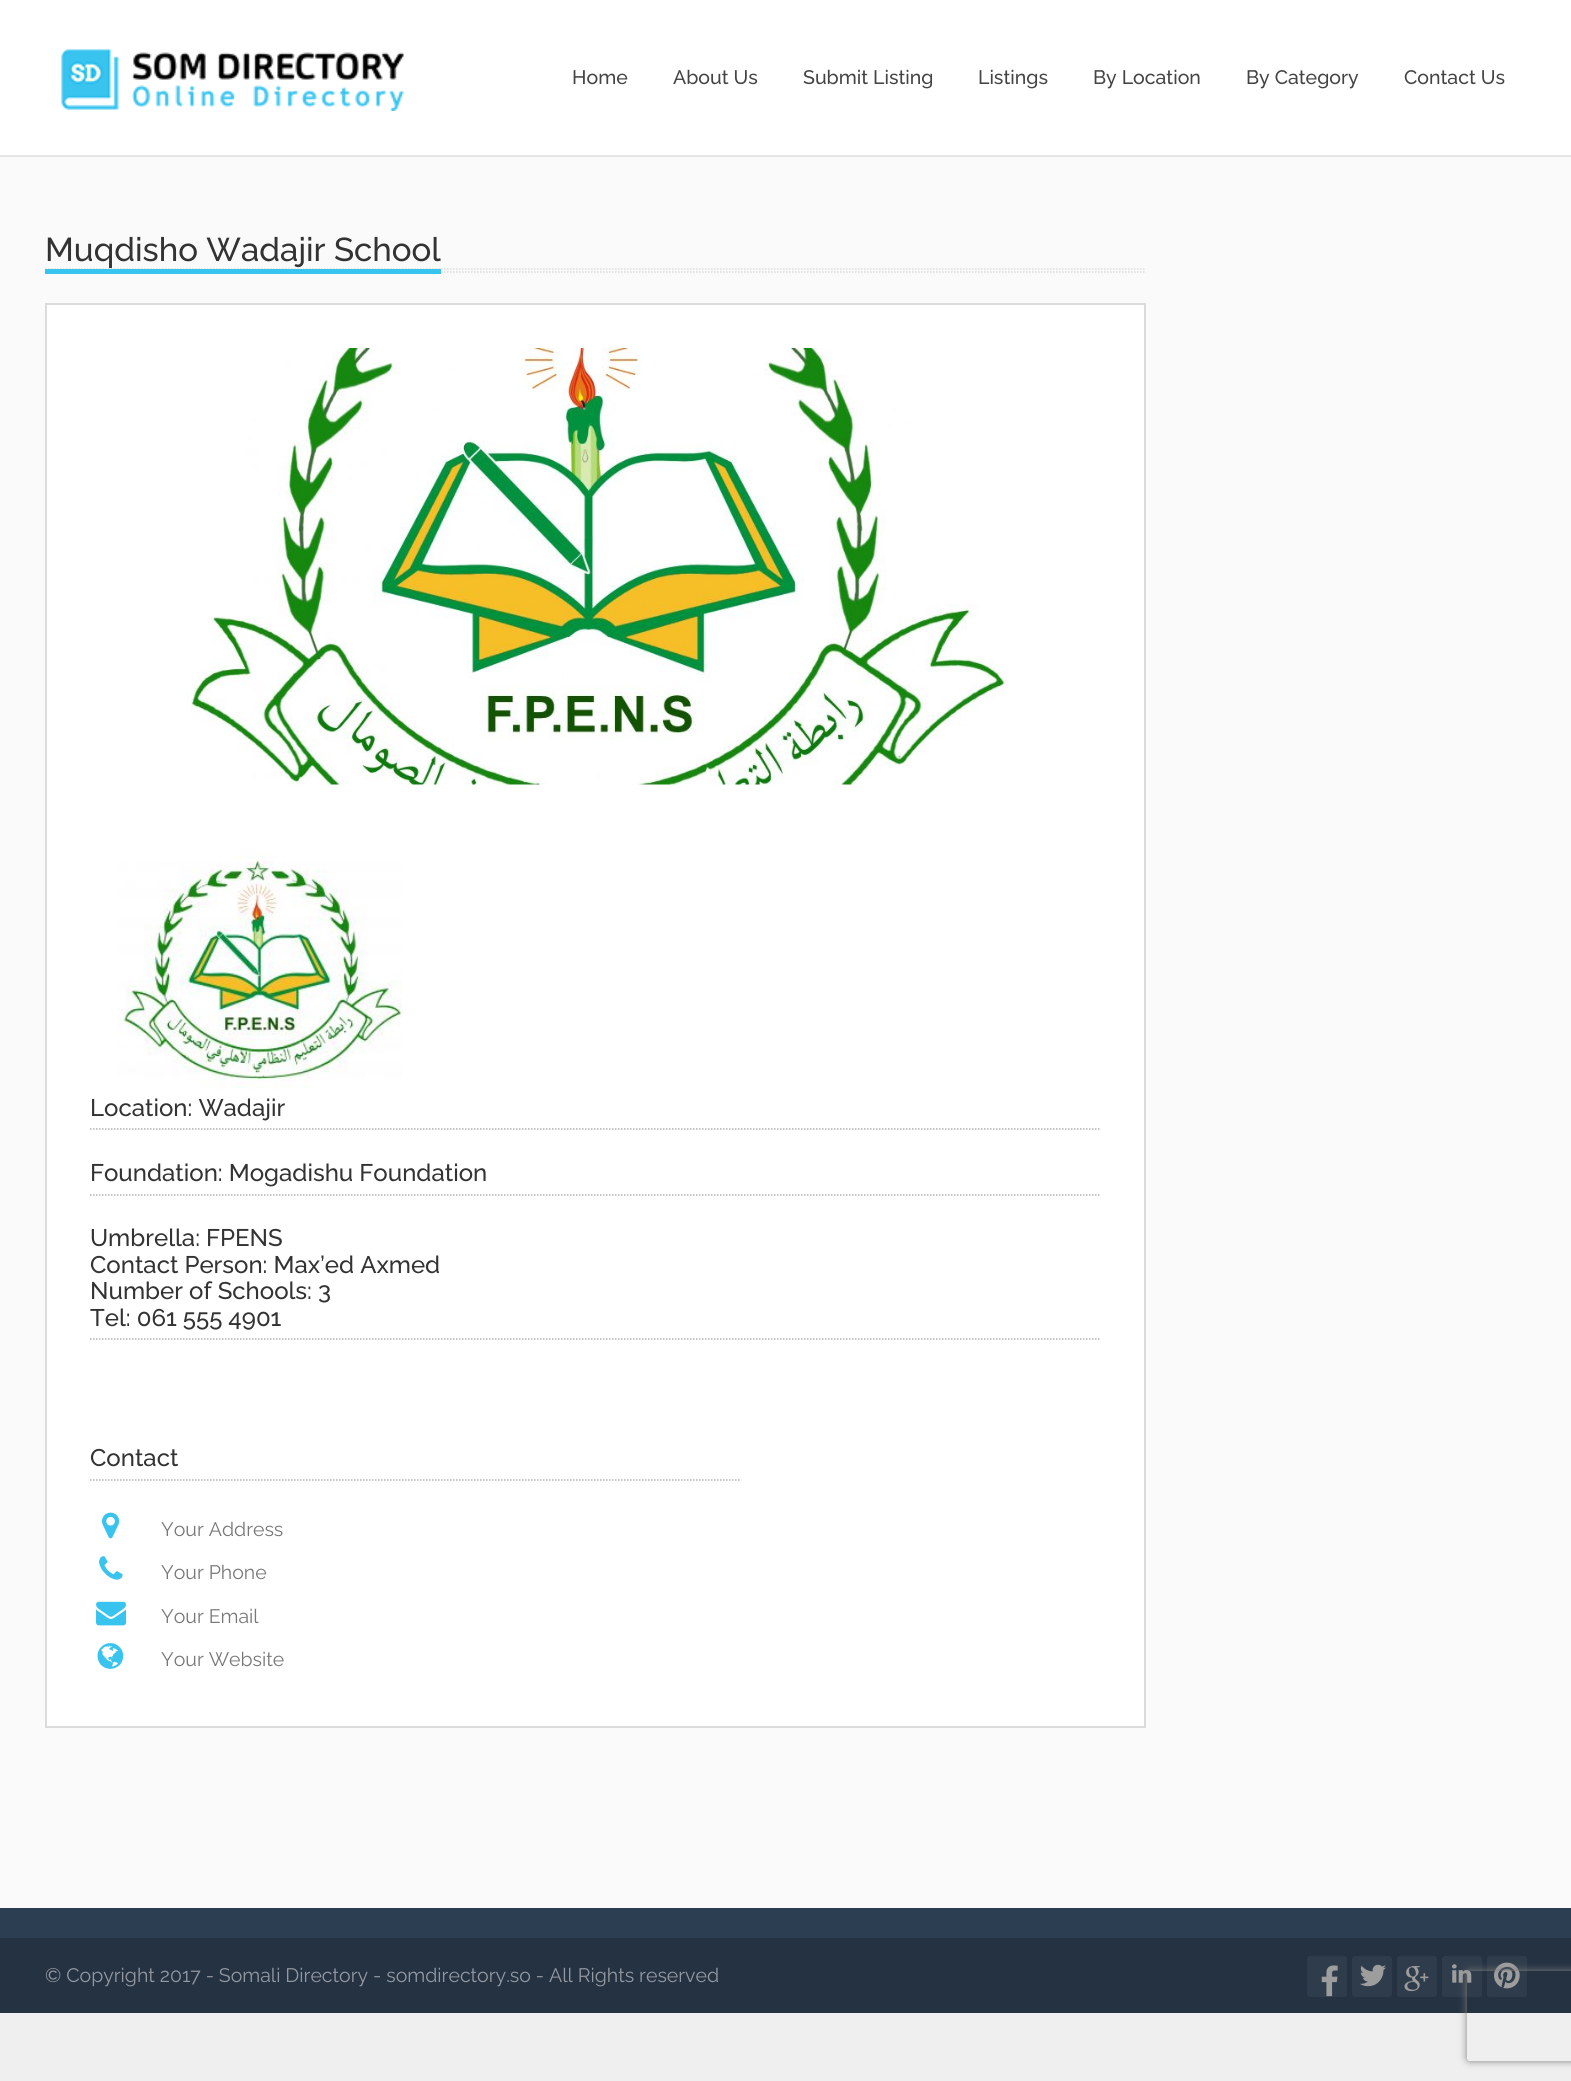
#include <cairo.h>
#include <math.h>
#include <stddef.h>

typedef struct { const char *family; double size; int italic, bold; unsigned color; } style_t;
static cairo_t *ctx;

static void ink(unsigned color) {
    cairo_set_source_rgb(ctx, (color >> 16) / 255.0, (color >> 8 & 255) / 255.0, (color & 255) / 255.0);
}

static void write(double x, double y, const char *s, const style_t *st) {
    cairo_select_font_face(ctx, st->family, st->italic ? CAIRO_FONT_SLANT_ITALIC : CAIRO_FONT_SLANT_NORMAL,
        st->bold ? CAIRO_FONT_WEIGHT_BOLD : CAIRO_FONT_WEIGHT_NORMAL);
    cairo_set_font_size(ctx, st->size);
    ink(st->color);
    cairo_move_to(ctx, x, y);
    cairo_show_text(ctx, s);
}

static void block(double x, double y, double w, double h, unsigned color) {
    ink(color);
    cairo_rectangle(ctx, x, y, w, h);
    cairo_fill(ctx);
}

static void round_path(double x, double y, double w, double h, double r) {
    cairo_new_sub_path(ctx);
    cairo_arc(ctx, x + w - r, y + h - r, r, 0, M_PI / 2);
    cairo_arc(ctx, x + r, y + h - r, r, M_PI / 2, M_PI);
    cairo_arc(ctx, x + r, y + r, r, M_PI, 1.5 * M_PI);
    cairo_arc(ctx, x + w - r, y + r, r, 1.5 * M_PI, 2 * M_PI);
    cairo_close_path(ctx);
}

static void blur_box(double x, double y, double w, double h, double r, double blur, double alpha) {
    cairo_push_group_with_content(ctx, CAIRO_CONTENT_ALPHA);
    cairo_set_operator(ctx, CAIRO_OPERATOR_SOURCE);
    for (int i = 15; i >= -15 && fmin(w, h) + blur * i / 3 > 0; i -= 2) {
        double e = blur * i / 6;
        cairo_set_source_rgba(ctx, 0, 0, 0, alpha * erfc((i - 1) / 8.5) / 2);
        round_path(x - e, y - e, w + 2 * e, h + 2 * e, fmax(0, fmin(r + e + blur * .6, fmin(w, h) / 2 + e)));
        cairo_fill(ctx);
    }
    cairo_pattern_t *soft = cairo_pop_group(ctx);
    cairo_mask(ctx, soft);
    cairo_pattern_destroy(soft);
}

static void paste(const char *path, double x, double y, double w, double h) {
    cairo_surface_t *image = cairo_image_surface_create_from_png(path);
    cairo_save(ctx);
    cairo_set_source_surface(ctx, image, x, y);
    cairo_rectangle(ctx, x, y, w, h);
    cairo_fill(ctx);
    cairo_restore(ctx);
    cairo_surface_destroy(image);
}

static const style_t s1 = {"Raleway Medium", 19.5, 0, 0, 0x444444};
static const style_t s2 = {"Raleway Medium", 33, 0, 0, 0x333333};
static const style_t s3 = {"Raleway Medium", 24, 0, 0, 0x333333};
static const style_t s4 = {"Raleway Thin", 19.5, 0, 0, 0x777777};
static const style_t s5 = {"Raleway Thin", 19.5, 0, 0, 0x9399a2};

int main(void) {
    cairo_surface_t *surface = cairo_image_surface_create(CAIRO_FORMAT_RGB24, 1571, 2081);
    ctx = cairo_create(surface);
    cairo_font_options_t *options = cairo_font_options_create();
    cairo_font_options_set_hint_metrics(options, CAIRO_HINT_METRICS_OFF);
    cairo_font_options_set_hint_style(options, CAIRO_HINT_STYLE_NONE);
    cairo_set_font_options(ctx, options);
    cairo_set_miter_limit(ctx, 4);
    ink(0xefefef);
    cairo_paint(ctx);
    block(0, 157, 1571, 1751, 0xfafafa);
    block(0, 0, 1571, 155, 0xffffff);
    block(0, 155, 1571, 2, 0xe5e5e5);
    paste("pic1.png", 61, 49, 343, 62);
    write(572, 84, "Home", &s1);
    write(673, 84, "About Us", &s1);
    write(803, 84, "Submit Listing", &s1);
    write(978, 84, "Listings", &s1);
    write(1093, 84, "By Location", &s1);
    write(1246, 84, "By Category", &s1);
    write(1404, 84, "Contact Us", &s1);
    cairo_new_path(ctx);
    cairo_move_to(ctx, 45, 269);
    cairo_line_to(ctx, 1146, 269);
    ink(0xdbdbdb);
    cairo_set_line_width(ctx, 1.5);
    cairo_set_dash(ctx, (double[]){1.5, 1.5}, 2, 0);
    cairo_stroke(ctx);
    cairo_new_path(ctx);
    cairo_move_to(ctx, 45, 272);
    cairo_line_to(ctx, 1146, 272);
    cairo_stroke(ctx);
    block(45, 269, 396, 5, 0x39c3ef);
    write(45, 261, "Muqdisho Wadajir School", &s2);
    ink(0xffffff);
    cairo_rectangle(ctx, 46, 304, 1099, 1423);
    cairo_fill_preserve(ctx);
    ink(0xdbdbdb);
    cairo_set_line_width(ctx, 2);
    cairo_set_dash(ctx, NULL, 0, 0);
    cairo_stroke(ctx);
    paste("pic2.png", 185, 348, 822, 437);
    paste("pic3.png", 117, 852, 286, 237);
    cairo_new_path(ctx);
    cairo_move_to(ctx, 90, 1129);
    cairo_line_to(ctx, 1101, 1129);
    ink(0xb2b2b2);
    cairo_set_line_width(ctx, 1.5);
    cairo_set_dash(ctx, (double[]){1.5, 1.5}, 2, 0);
    cairo_stroke(ctx);
    write(90, 1116, "Location: Wadajir", &s3);
    cairo_new_path(ctx);
    cairo_move_to(ctx, 90, 1195);
    cairo_line_to(ctx, 1101, 1195);
    ink(0xb2b2b2);
    cairo_stroke(ctx);
    write(90, 1181, "Foundation: Mogadishu Foundation", &s3);
    cairo_new_path(ctx);
    cairo_move_to(ctx, 90, 1339);
    cairo_line_to(ctx, 1101, 1339);
    ink(0xb2b2b2);
    cairo_stroke(ctx);
    write(90, 1246, "Umbrella: FPENS", &s3);
    write(90, 1273, "Contact Person: Max’ed Axmed", &s3);
    write(90, 1299, "Number of Schools: 3", &s3);
    write(90, 1326, "Tel: 061 555 4901", &s3);
    cairo_new_path(ctx);
    cairo_move_to(ctx, 90, 1480);
    cairo_line_to(ctx, 741, 1480);
    ink(0xb2b2b2);
    cairo_stroke(ctx);
    write(90, 1466, "Contact", &s3);
    paste("pic4.png", 102, 1512, 18, 27);
    write(161, 1536, "Your Address", &s4);
    paste("pic5.png", 99, 1556, 24, 24);
    write(161, 1579, "Your Phone", &s4);
    paste("pic6.png", 96, 1601, 31, 25);
    write(161, 1623, "Your Email", &s4);
    paste("pic7.png", 97, 1643, 27, 26);
    write(161, 1666, "Your Website", &s4);
    block(0, 1908, 1571, 30, 0x2c3e52);
    block(0, 1938, 1571, 75, 0x243242);
    write(45, 1982, "© Copyright 2017 - Somali Directory - somdirectory.so - All Rights reserved", &s5);
    ink(0x2f3c4b);
    round_path(1307, 1956, 40, 41, 3);
    cairo_fill(ctx);
    paste("pic8.png", 1321, 1965, 17, 32);
    round_path(1352, 1956, 40, 41, 3);
    cairo_fill(ctx);
    paste("pic9.png", 1360, 1964, 26, 23);
    round_path(1397, 1956, 40, 41, 3);
    cairo_fill(ctx);
    paste("pic10.png", 1404, 1966, 25, 26);
    round_path(1442, 1956, 40, 41, 3);
    cairo_fill(ctx);
    paste("pic11.png", 1452, 1964, 20, 19);
    round_path(1487, 1956, 40, 41, 3);
    cairo_fill(ctx);
    paste("pic12.png", 1494, 1962, 26, 27);
    cairo_save(ctx);
    cairo_set_fill_rule(ctx, CAIRO_FILL_RULE_EVEN_ODD);
    cairo_new_path(ctx);
    cairo_move_to(ctx, 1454, 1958);
    cairo_line_to(ctx, 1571, 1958);
    cairo_line_to(ctx, 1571, 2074);
    cairo_line_to(ctx, 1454, 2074);
    cairo_close_path(ctx);
    cairo_move_to(ctx, 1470, 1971);
    cairo_line_to(ctx, 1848, 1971);
    cairo_curve_to(ctx, 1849.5, 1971, 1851, 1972.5, 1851, 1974);
    cairo_line_to(ctx, 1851, 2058);
    cairo_curve_to(ctx, 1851, 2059.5, 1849.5, 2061, 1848, 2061);
    cairo_line_to(ctx, 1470, 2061);
    cairo_curve_to(ctx, 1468.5, 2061, 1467, 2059.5, 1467, 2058);
    cairo_line_to(ctx, 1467, 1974);
    cairo_curve_to(ctx, 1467, 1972.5, 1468.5, 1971, 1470, 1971);
    cairo_close_path(ctx);
    cairo_clip(ctx);
    ink(0x808080);
    blur_box(1467, 1971, 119, 90, 3, 4, 1);
    cairo_restore(ctx);
    cairo_surface_write_to_png(surface, "screenshot.png");
    cairo_font_options_destroy(options);
    cairo_destroy(ctx);
    cairo_surface_destroy(surface);
    return 0;
}
